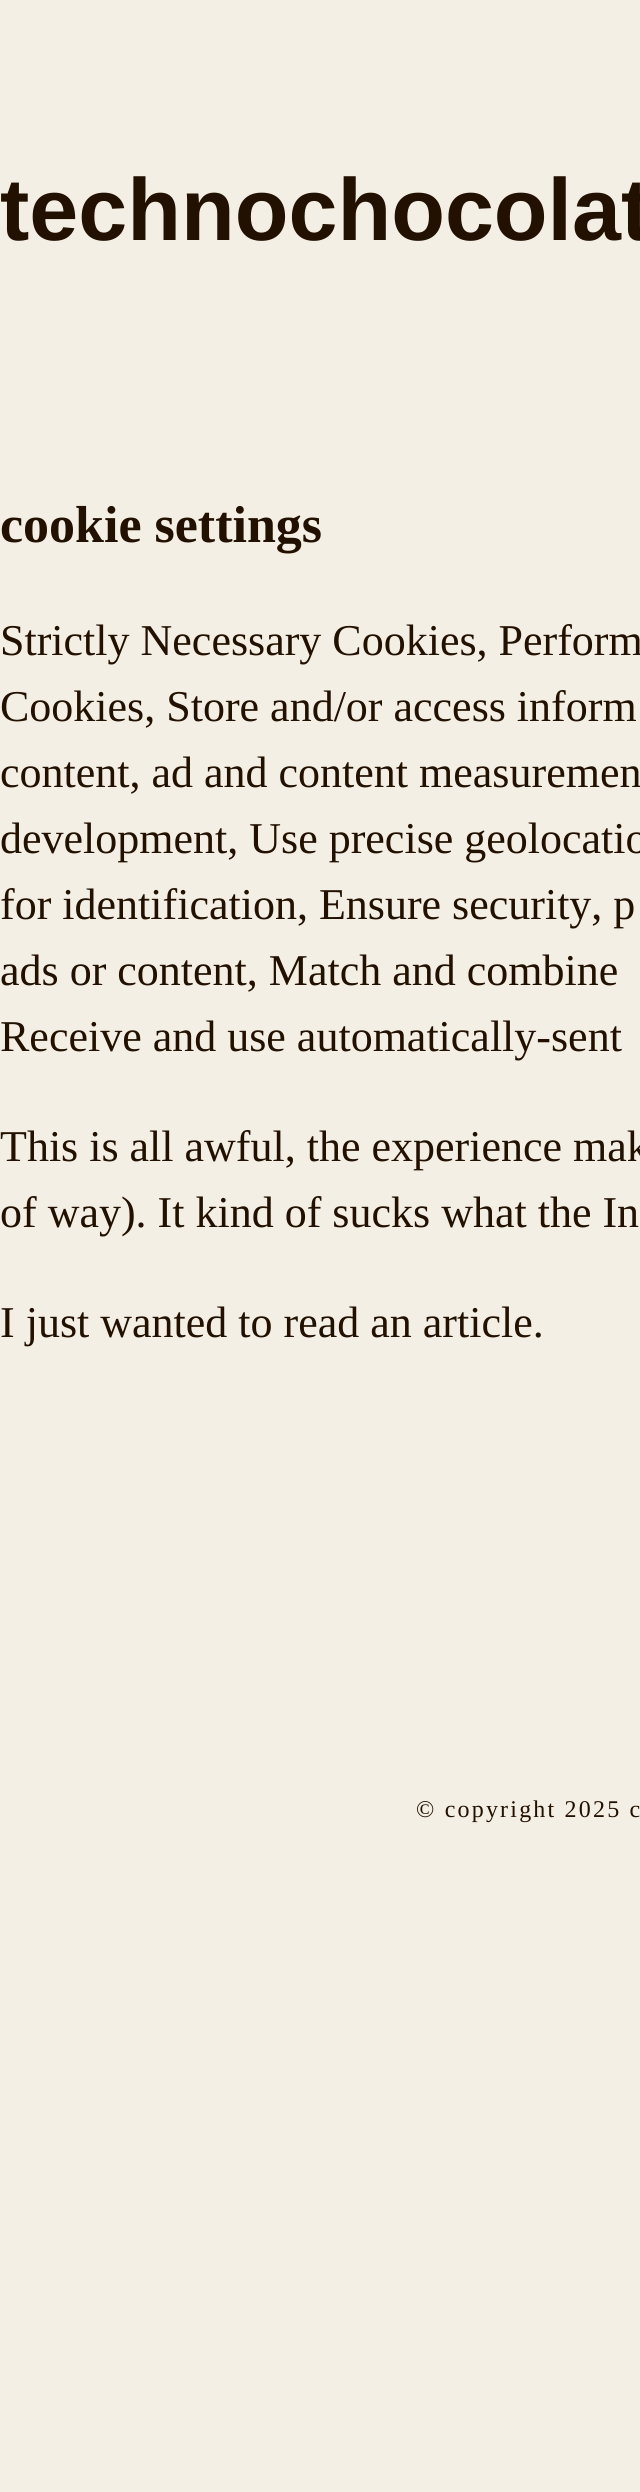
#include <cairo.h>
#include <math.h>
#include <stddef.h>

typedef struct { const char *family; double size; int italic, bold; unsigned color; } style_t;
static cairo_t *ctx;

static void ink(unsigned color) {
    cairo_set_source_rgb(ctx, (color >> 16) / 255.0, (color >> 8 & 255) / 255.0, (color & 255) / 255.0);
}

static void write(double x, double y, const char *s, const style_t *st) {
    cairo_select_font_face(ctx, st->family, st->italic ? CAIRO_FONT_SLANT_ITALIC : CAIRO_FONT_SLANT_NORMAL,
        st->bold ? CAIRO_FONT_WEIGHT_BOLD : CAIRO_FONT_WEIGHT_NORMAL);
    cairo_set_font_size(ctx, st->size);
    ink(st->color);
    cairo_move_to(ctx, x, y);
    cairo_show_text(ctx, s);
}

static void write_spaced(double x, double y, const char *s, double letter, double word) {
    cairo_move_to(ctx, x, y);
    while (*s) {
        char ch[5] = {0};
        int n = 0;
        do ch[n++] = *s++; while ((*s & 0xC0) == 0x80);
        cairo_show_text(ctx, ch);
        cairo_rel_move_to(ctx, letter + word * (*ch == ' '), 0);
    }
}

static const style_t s1 = {"Liberation Sans", 88, 0, 1, 0x221100};
static const style_t s2 = {"Liberation Serif", 52, 0, 1, 0x221100};
static const style_t s3 = {"Liberation Serif", 44, 0, 0, 0x221100};

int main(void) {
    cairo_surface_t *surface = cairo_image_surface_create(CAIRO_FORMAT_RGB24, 640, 2492);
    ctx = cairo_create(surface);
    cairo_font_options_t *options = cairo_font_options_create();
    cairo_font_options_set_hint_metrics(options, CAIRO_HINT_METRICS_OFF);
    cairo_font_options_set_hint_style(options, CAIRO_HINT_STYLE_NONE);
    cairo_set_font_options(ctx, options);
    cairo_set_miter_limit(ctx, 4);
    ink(0xf4efe4);
    cairo_paint(ctx);
    write(0, 240, "technochocolat", &s1);
    write(0, 542, "cookie settings", &s2);
    write(0, 655, "Strictly Necessary Cookies, Perform", &s3);
    write(0, 721, "Cookies, Store and/or access inform", &s3);
    write(0, 787, "content, ad and content measuremen", &s3);
    write(0, 853, "development, Use precise geolocatio", &s3);
    write(0, 919, "for identification, Ensure security, p", &s3);
    write(0, 985, "ads or content, Match and combine", &s3);
    write(0, 1051, "Receive and use automatically-sent", &s3);
    write(0, 1161, "This is all awful, the experience mak", &s3);
    write(0, 1227, "of way). It kind of sucks what the In", &s3);
    write(0, 1337, "I just wanted to read an article.", &s3);
    cairo_set_font_size(ctx, 24);
    write_spaced(416, 1817, "© copyright 2025 c", 2.2, 0);
    cairo_surface_write_to_png(surface, "screenshot.png");
    cairo_font_options_destroy(options);
    cairo_destroy(ctx);
    cairo_surface_destroy(surface);
    return 0;
}
